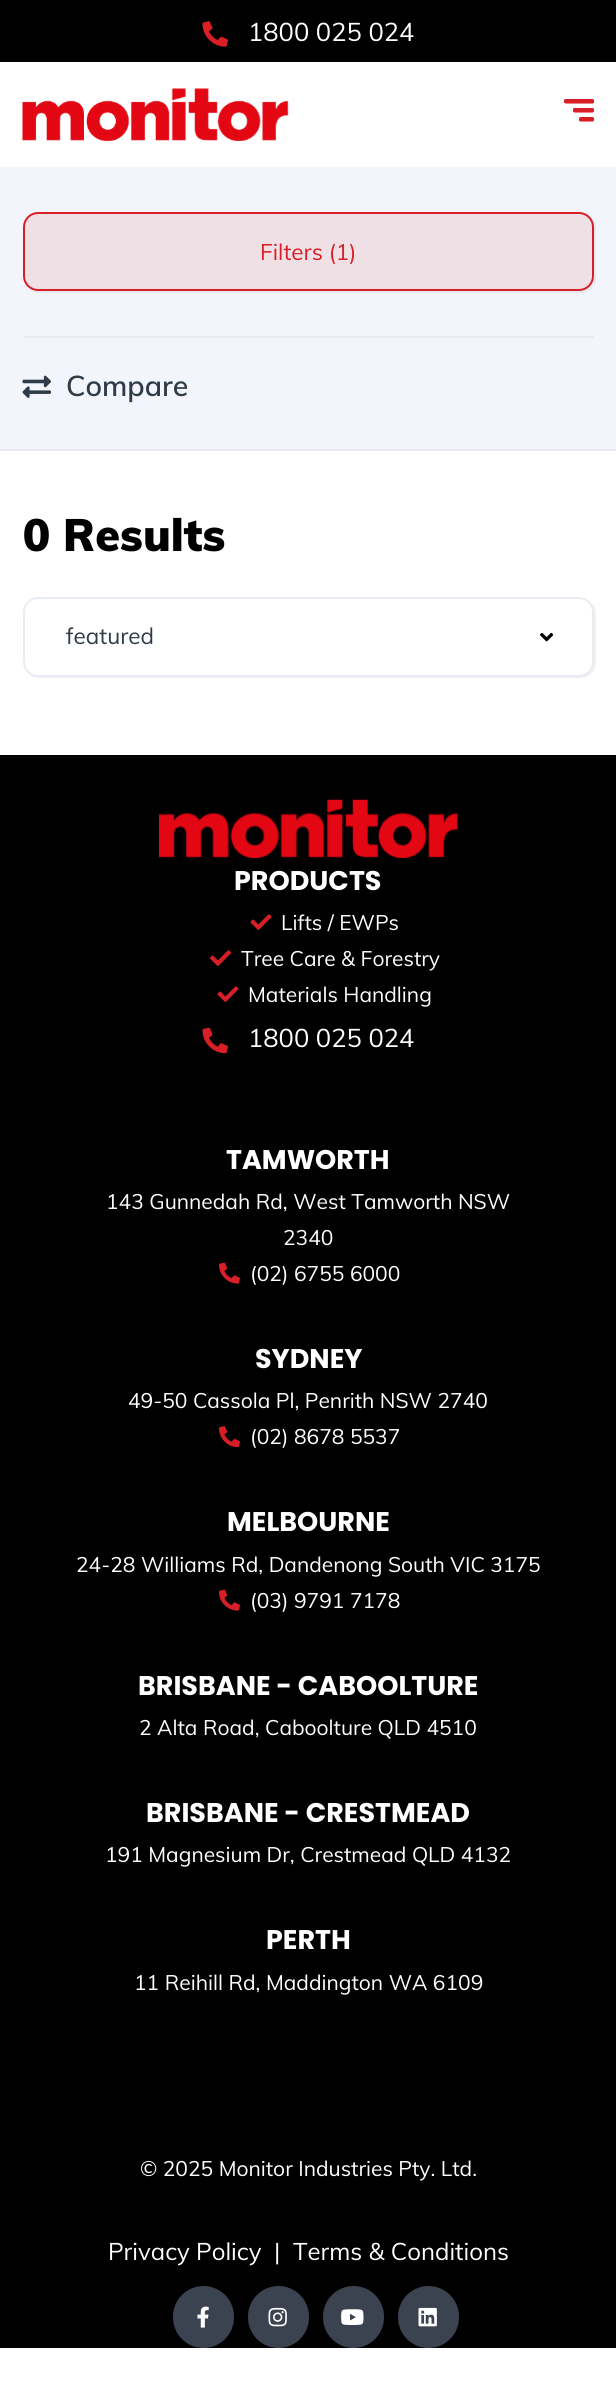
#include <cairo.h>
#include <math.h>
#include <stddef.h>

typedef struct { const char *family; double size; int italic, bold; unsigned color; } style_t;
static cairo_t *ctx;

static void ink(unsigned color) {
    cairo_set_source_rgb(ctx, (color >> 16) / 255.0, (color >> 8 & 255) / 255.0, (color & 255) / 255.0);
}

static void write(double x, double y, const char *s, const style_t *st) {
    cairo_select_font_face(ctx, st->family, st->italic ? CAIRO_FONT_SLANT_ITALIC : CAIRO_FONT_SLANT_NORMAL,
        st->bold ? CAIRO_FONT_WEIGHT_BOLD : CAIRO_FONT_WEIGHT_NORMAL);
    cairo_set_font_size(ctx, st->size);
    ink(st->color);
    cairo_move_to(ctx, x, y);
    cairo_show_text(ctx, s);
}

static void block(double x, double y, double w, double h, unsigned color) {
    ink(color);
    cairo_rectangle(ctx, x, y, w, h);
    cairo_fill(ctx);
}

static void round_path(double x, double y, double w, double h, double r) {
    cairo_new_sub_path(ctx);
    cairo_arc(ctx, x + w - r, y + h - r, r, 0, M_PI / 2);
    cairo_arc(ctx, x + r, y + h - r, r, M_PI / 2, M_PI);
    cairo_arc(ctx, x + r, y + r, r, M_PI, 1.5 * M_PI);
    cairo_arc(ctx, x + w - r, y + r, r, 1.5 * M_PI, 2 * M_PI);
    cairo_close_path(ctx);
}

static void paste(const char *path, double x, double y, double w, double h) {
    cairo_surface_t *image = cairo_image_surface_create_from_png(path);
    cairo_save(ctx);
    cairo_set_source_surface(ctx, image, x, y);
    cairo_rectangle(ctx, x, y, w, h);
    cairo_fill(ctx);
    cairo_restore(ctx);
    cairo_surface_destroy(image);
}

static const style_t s1 = {"Muli", 25.5, 0, 0, 0xffffff};
static const style_t s2 = {"Muli", 22.5, 0, 0, 0xd81f28};
static const style_t s3 = {"Muli SemiBold", 28.5, 0, 0, 0x2f3b48};
static const style_t s4 = {"Muli Black", 45, 0, 0, 0x000000};
static const style_t s5 = {"Muli", 22.5, 0, 0, 0x2f3b48};
static const style_t s6 = {"Poppins", 27, 0, 1, 0xffffff};
static const style_t s7 = {"Muli", 21, 0, 0, 0xffffff};
static const style_t s8 = {"Muli", 24, 0, 0, 0xffffff};

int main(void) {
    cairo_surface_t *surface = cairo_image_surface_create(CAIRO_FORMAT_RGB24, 616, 2400);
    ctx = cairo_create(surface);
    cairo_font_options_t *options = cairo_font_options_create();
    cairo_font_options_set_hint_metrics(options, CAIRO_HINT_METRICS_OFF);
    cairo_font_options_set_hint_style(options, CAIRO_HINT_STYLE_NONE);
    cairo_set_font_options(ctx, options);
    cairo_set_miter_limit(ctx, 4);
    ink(0xffffff);
    cairo_paint(ctx);
    block(0, 0, 616, 62, 0x000000);
    paste("pic1.png", 202, 21, 26, 26);
    write(248, 41, "1800 025 024", &s1);
    paste("pic2.png", 22, 88, 267, 53);
    paste("pic3.png", 564, 99, 30, 23);
    block(0, 167, 616, 282, 0xf2f5fb);
    ink(0xe7e9ee);
    cairo_new_path(ctx);
    cairo_move_to(ctx, 26, 286);
    cairo_curve_to(ctx, 29, 290, 34, 293, 39, 293);
    cairo_line_to(ctx, 581, 293);
    cairo_curve_to(ctx, 589, 293, 596, 286, 596, 278);
    cairo_line_to(ctx, 596, 228);
    cairo_curve_to(ctx, 596, 223, 593, 218, 589, 215);
    cairo_curve_to(ctx, 592, 218, 594, 222, 594, 226);
    cairo_line_to(ctx, 594, 276);
    cairo_curve_to(ctx, 594, 284, 587, 291, 579, 291);
    cairo_line_to(ctx, 38, 291);
    cairo_curve_to(ctx, 33, 291, 29, 289, 26, 286);
    cairo_close_path(ctx);
    cairo_fill(ctx);
    cairo_set_source_rgba(ctx, 0.847, 0.122, 0.157, 0.1);
    round_path(24, 213, 569, 77, 14);
    cairo_fill_preserve(ctx);
    ink(0xd81f28);
    cairo_stroke(ctx);
    write(260, 260, "Filters (1)", &s2);
    block(0, 449, 616, 2, 0xe7e9ee);
    block(23, 336, 571, 2, 0xe9ebf0);
    paste("pic4.png", 22, 375, 29, 23);
    write(66, 396, "Compare", &s3);
    write(23, 551, "0 Results", &s4);
    ink(0xf1f1f1);
    cairo_new_path(ctx);
    cairo_move_to(ctx, 28, 673);
    cairo_curve_to(ctx, 30, 676, 34, 678, 39, 678);
    cairo_line_to(ctx, 581, 678);
    cairo_curve_to(ctx, 589, 678, 596, 671, 596, 663);
    cairo_line_to(ctx, 596, 614);
    cairo_curve_to(ctx, 596, 609, 594, 605, 591, 602);
    cairo_curve_to(ctx, 593, 605, 594, 608, 594, 612);
    cairo_line_to(ctx, 594, 662);
    cairo_curve_to(ctx, 594, 670, 587, 676, 579, 676);
    cairo_line_to(ctx, 38, 676);
    cairo_curve_to(ctx, 34, 676, 30, 675, 28, 673);
    cairo_close_path(ctx);
    cairo_fill(ctx);
    ink(0xffffff);
    round_path(24, 598, 569, 78, 14);
    cairo_fill_preserve(ctx);
    ink(0xe7edf3);
    cairo_stroke(ctx);
    write(66, 644, "featured", &s5);
    paste("pic5.png", 540, 632, 14, 10);
    block(0, 755, 616, 1593, 0x000000);
    paste("pic6.png", 159, 799, 299, 59);
    write(234, 890, "PRODUCTS", &s6);
    paste("pic7.png", 250, 914, 22, 16);
    write(281, 930, "Lifts / EWPs", &s7);
    paste("pic8.png", 210, 950, 21, 16);
    write(241, 966, "Tree Care & Forestry", &s7);
    paste("pic7.png", 217, 986, 22, 16);
    write(248, 1002, "Materials Handling", &s7);
    paste("pic9.png", 202, 1027, 26, 27);
    write(248, 1047, "1800 025 024", &s1);
    write(226, 1169, "TAMWORTH", &s6);
    write(106, 1209, "143 Gunnedah Rd, West Tamworth NSW", &s7);
    write(283, 1245, "2340", &s7);
    paste("pic10.png", 219, 1262, 21, 22);
    write(250, 1281, "(02) 6755 6000", &s7);
    write(255, 1368, "SYDNEY", &s6);
    write(128, 1408, "49-50 Cassola Pl, Penrith NSW 2740", &s7);
    paste("pic11.png", 219, 1426, 21, 22);
    write(250, 1444, "(02) 8678 5537", &s7);
    write(227, 1531, "MELBOURNE", &s6);
    write(76, 1572, "24-28 Williams Rd, Dandenong South VIC 3175", &s7);
    paste("pic10.png", 219, 1589, 21, 22);
    write(250, 1608, "(03) 9791 7178", &s7);
    write(138, 1695, "BRISBANE - CABOOLTURE", &s6);
    write(139, 1735, "2 Alta Road, Caboolture QLD 4510", &s7);
    write(146, 1822, "BRISBANE - CRESTMEAD", &s6);
    write(105, 1862, "191 Magnesium Dr, Crestmead QLD 4132", &s7);
    write(266, 1949, "PERTH", &s6);
    write(134, 1990, "11 Reihill Rd, Maddington WA 6109", &s7);
    write(140, 2176, "© 2025 Monitor Industries Pty. Ltd.", &s7);
    write(108, 2260, "Privacy Policy", &s8);
    write(274, 2260, "|", &s8);
    write(293, 2260, "Terms & Conditions", &s8);
    ink(0x3b4250);
    round_path(173, 2286, 61, 62, 30.5);
    cairo_fill(ctx);
    paste("pic12.png", 197, 2306, 12, 22);
    round_path(248, 2286, 61, 62, 30.5);
    cairo_fill(ctx);
    paste("pic13.png", 268, 2307, 19, 20);
    round_path(323, 2286, 61, 62, 30.5);
    cairo_fill(ctx);
    paste("pic14.png", 341, 2309, 23, 16);
    round_path(398, 2286, 61, 62, 30.5);
    cairo_fill(ctx);
    paste("pic15.png", 418, 2307, 19, 20);
    cairo_surface_write_to_png(surface, "screenshot.png");
    cairo_font_options_destroy(options);
    cairo_destroy(ctx);
    cairo_surface_destroy(surface);
    return 0;
}
